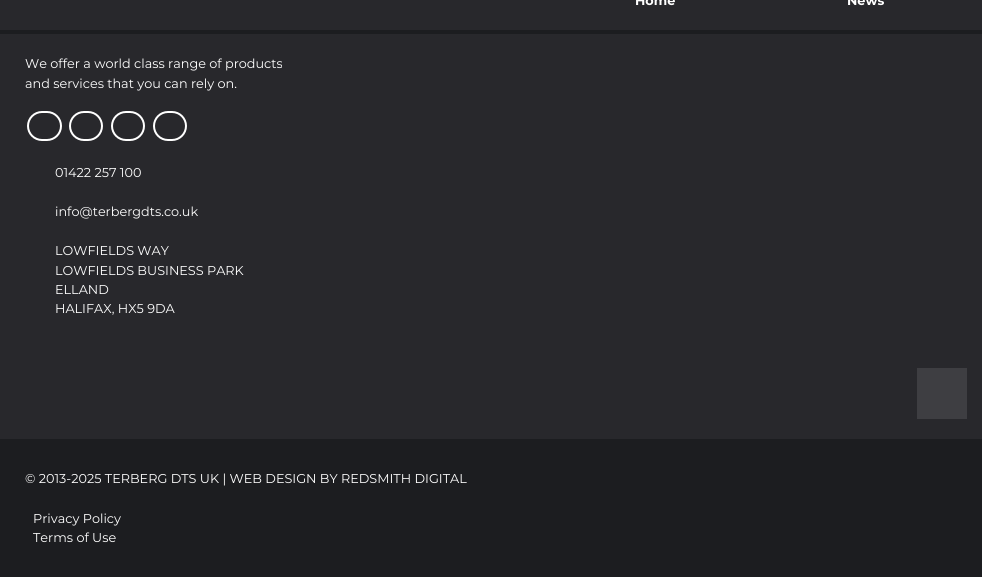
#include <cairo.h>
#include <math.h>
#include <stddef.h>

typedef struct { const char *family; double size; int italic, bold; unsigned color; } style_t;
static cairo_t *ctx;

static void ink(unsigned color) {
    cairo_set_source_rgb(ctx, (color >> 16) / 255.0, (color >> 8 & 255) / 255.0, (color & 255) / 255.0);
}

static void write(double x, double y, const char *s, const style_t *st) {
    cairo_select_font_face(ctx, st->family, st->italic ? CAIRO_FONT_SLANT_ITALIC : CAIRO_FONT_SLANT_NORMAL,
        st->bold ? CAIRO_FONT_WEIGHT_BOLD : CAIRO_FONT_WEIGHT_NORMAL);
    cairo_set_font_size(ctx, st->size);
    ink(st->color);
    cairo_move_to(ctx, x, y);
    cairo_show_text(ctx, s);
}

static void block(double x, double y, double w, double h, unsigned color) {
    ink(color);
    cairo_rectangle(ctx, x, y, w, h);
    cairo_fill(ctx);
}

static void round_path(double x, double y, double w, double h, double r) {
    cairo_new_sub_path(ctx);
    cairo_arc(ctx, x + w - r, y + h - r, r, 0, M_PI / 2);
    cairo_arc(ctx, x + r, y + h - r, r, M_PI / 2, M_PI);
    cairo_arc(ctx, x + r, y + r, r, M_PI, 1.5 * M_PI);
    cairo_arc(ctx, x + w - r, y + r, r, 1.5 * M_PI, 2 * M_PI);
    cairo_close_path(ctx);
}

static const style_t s1 = {"Montserrat", 12.8, 0, 1, 0xffffff};
static const style_t s2 = {"Montserrat", 12.8, 0, 0, 0xffffff};

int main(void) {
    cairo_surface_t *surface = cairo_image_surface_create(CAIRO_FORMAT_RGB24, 982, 577);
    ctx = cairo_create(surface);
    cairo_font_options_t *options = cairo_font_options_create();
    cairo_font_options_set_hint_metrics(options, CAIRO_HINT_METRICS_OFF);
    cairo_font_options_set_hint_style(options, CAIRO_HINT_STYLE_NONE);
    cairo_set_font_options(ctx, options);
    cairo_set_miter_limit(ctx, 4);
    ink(0x28282c);
    cairo_paint(ctx);
    block(0, 30, 982, 4, 0x1c1d20);
    write(635, 5, "Home", &s1);
    write(847, 5, "News", &s1);
    write(25, 68, "We offer a world class range of products", &s2);
    write(25, 88, "and services that you can rely on.", &s2);
    round_path(28, 112, 33, 28, 14);
    cairo_stroke(ctx);
    round_path(70, 112, 32, 28, 14);
    cairo_stroke(ctx);
    round_path(112, 112, 32, 28, 14);
    cairo_stroke(ctx);
    round_path(154, 112, 32, 28, 14);
    cairo_stroke(ctx);
    write(55, 177, "01422 257 100", &s2);
    write(55, 216, "info@terbergdts.co.uk", &s2);
    write(55, 255, "LOWFIELDS WAY", &s2);
    write(55, 275, "LOWFIELDS BUSINESS PARK", &s2);
    write(55, 294, "ELLAND", &s2);
    write(55, 313, "HALIFAX, HX5 9DA", &s2);
    block(917, 368, 50, 51, 0x3e3e42);
    block(0, 439, 982, 138, 0x1c1d20);
    write(25, 483, "© 2013-2025 TERBERG DTS UK | WEB DESIGN BY REDSMITH DIGITAL", &s2);
    write(33, 523, "Privacy Policy", &s2);
    write(33, 542, "Terms of Use", &s2);
    cairo_surface_write_to_png(surface, "screenshot.png");
    cairo_font_options_destroy(options);
    cairo_destroy(ctx);
    cairo_surface_destroy(surface);
    return 0;
}
